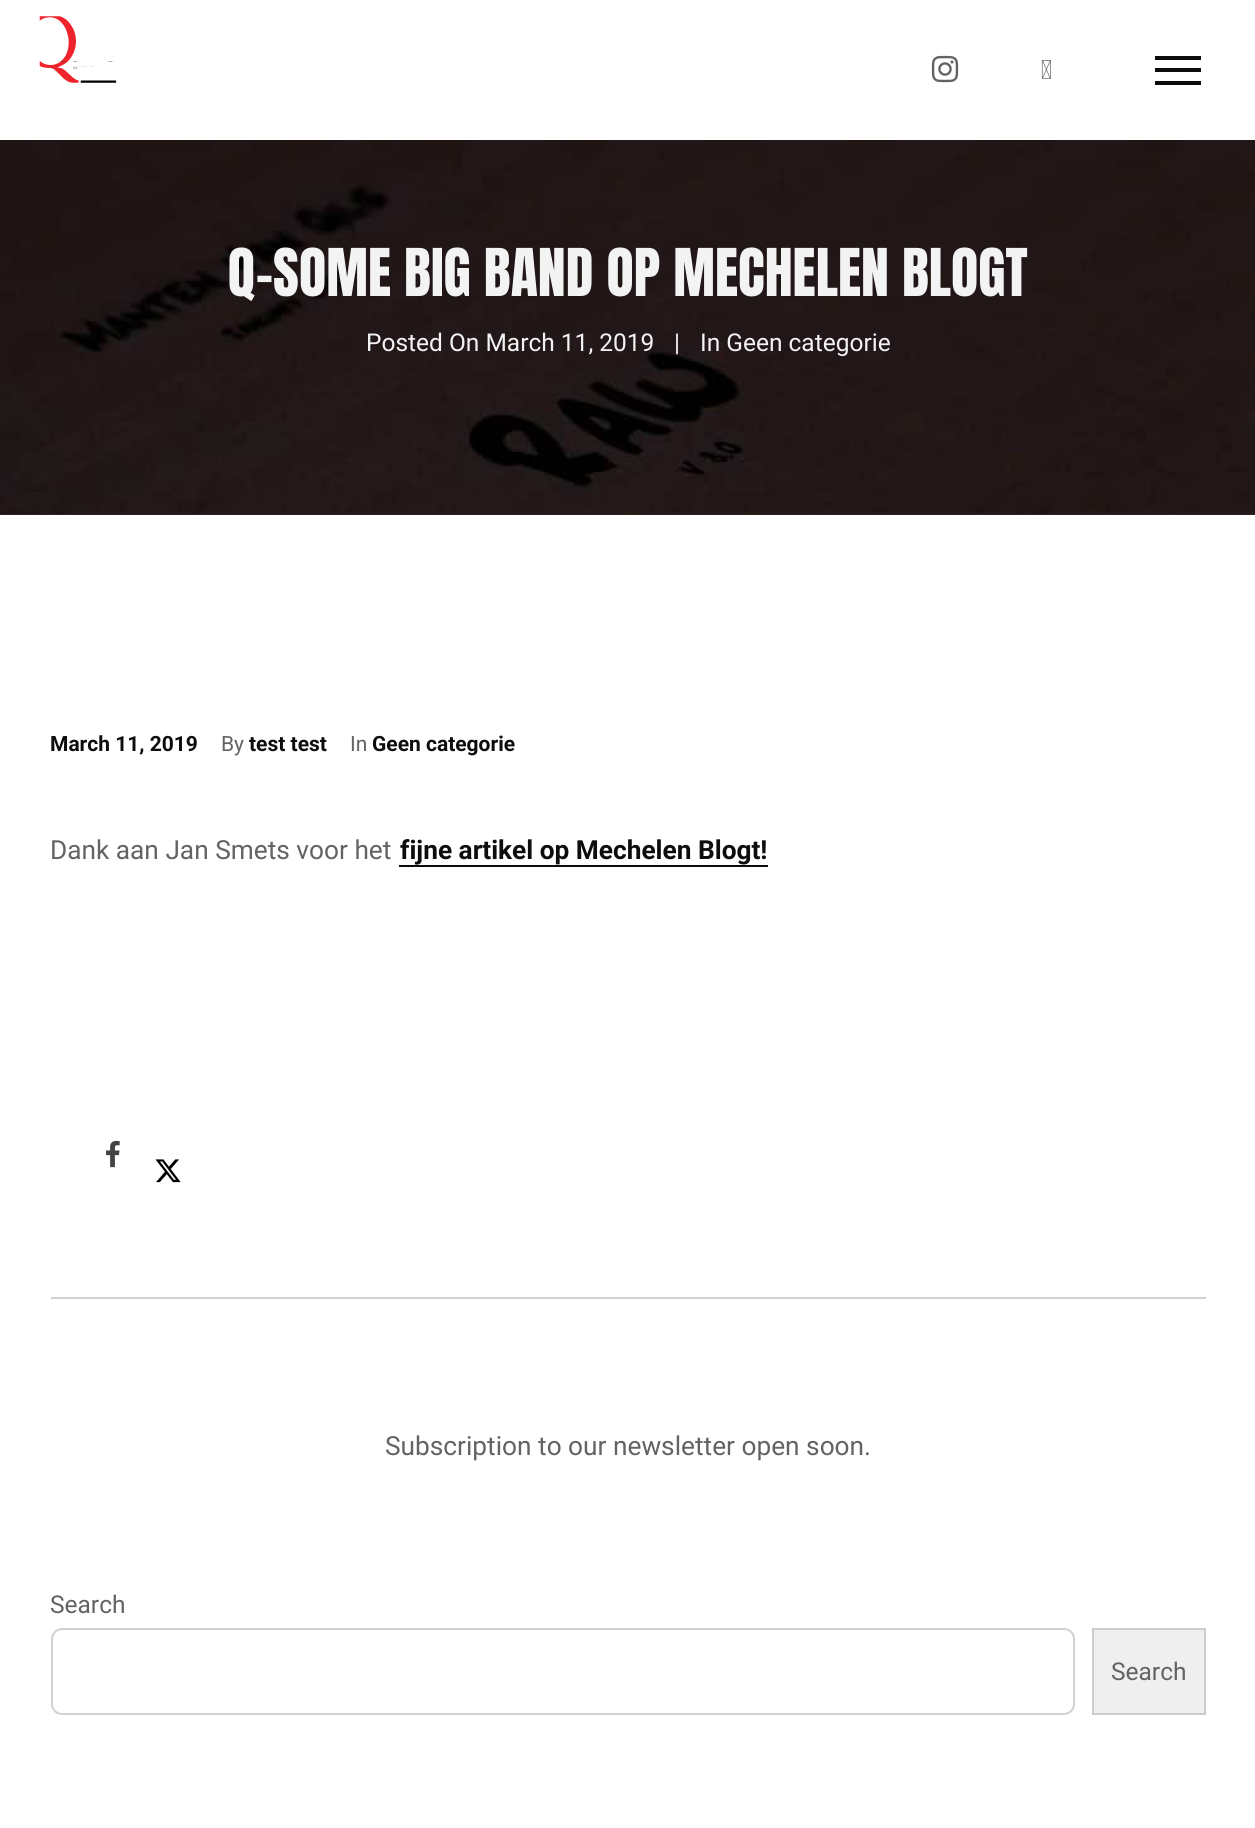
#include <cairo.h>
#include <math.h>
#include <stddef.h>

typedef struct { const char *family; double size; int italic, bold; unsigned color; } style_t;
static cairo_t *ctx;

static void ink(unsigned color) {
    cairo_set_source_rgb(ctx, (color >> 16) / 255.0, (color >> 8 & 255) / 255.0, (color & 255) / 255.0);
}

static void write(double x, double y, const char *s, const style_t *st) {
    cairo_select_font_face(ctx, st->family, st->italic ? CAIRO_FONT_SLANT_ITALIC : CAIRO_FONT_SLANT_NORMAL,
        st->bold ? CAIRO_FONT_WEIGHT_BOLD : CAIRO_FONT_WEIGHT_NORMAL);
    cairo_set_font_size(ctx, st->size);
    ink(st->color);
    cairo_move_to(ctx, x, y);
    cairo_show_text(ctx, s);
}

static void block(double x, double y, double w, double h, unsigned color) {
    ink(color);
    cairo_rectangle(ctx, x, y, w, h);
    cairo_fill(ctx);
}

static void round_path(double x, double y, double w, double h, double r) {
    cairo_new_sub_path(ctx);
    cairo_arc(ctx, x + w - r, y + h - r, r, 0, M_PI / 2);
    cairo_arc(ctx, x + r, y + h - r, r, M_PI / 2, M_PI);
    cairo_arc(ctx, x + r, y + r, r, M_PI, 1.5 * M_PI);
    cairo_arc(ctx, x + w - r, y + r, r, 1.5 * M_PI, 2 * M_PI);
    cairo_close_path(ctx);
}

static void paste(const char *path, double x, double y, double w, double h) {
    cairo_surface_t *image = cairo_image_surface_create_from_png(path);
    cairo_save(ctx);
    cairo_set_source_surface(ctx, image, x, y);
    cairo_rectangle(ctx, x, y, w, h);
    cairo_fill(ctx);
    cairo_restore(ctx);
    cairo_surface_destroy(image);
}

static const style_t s1 = {"Anton", 56, 0, 0, 0xf4f3f3};
static const style_t s2 = {"Roboto", 24.5, 0, 0, 0xf4f3f3};
static const style_t s3 = {"Roboto", 21, 0, 1, 0x0d0d0d};
static const style_t s4 = {"Roboto", 21, 0, 0, 0x636363};
static const style_t s5 = {"Roboto", 26.25, 0, 0, 0x636363};
static const style_t s6 = {"Roboto", 26.25, 0, 1, 0x0d0d0d};
static const style_t s7 = {"Roboto", 24.5, 0, 0, 0x636363};

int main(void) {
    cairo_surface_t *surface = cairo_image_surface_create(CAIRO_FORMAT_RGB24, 1255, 1828);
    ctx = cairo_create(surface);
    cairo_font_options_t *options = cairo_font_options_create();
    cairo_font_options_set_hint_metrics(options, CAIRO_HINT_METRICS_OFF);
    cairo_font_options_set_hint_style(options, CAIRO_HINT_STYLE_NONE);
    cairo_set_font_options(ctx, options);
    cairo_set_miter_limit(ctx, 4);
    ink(0xffffff);
    cairo_paint(ctx);
    paste("pic1.png", 39, 16, 78, 67);
    paste("pic2.png", 931, 55, 28, 28);
    paste("pic3.png", 1041, 60, 10, 19);
    block(1155, 56, 46, 4, 0x0d0d0d);
    block(1155, 68, 46, 4, 0x0d0d0d);
    block(1155, 81, 46, 4, 0x0d0d0d);
    block(0, 514, 1255, 1, 0x2f2020);
    paste("pic4.png", 0, 140, 1255, 374);
    write(228, 296, "Q-SOME BIG BAND OP MECHELEN BLOGT", &s1);
    write(366, 351, "Posted On March 11, 2019", &s2);
    write(674, 351, "|", &s2);
    write(700, 351, "In Geen categorie", &s2);
    write(50, 751, "March 11, 2019", &s3);
    write(221, 751, "By", &s4);
    write(249, 751, "test test", &s3);
    write(350, 751, "In", &s4);
    write(372, 751, "Geen categorie", &s3);
    write(50, 859, "Dank aan Jan Smets voor het", &s5);
    write(400, 859, "fijne artikel op Mechelen Blogt!", &s6);
    block(399, 865, 369, 2, 0x0d0d0d);
    paste("pic5.png", 106, 1140, 14, 28);
    paste("pic6.png", 155, 1159, 26, 24);
    block(51, 1297, 1155, 2, 0xd1d1d1);
    write(385, 1455, "Subscription to our newsletter open soon.", &s5);
    write(50, 1613, "Search", &s7);
    round_path(52, 1629, 1022, 85, 10);
    ink(0xd1d1d1);
    cairo_stroke(ctx);
    ink(0xefefef);
    cairo_rectangle(ctx, 1093, 1629, 112, 85);
    cairo_fill_preserve(ctx);
    ink(0xcccccc);
    cairo_stroke(ctx);
    write(1111, 1680, "Search", &s7);
    cairo_surface_write_to_png(surface, "screenshot.png");
    cairo_font_options_destroy(options);
    cairo_destroy(ctx);
    cairo_surface_destroy(surface);
    return 0;
}
